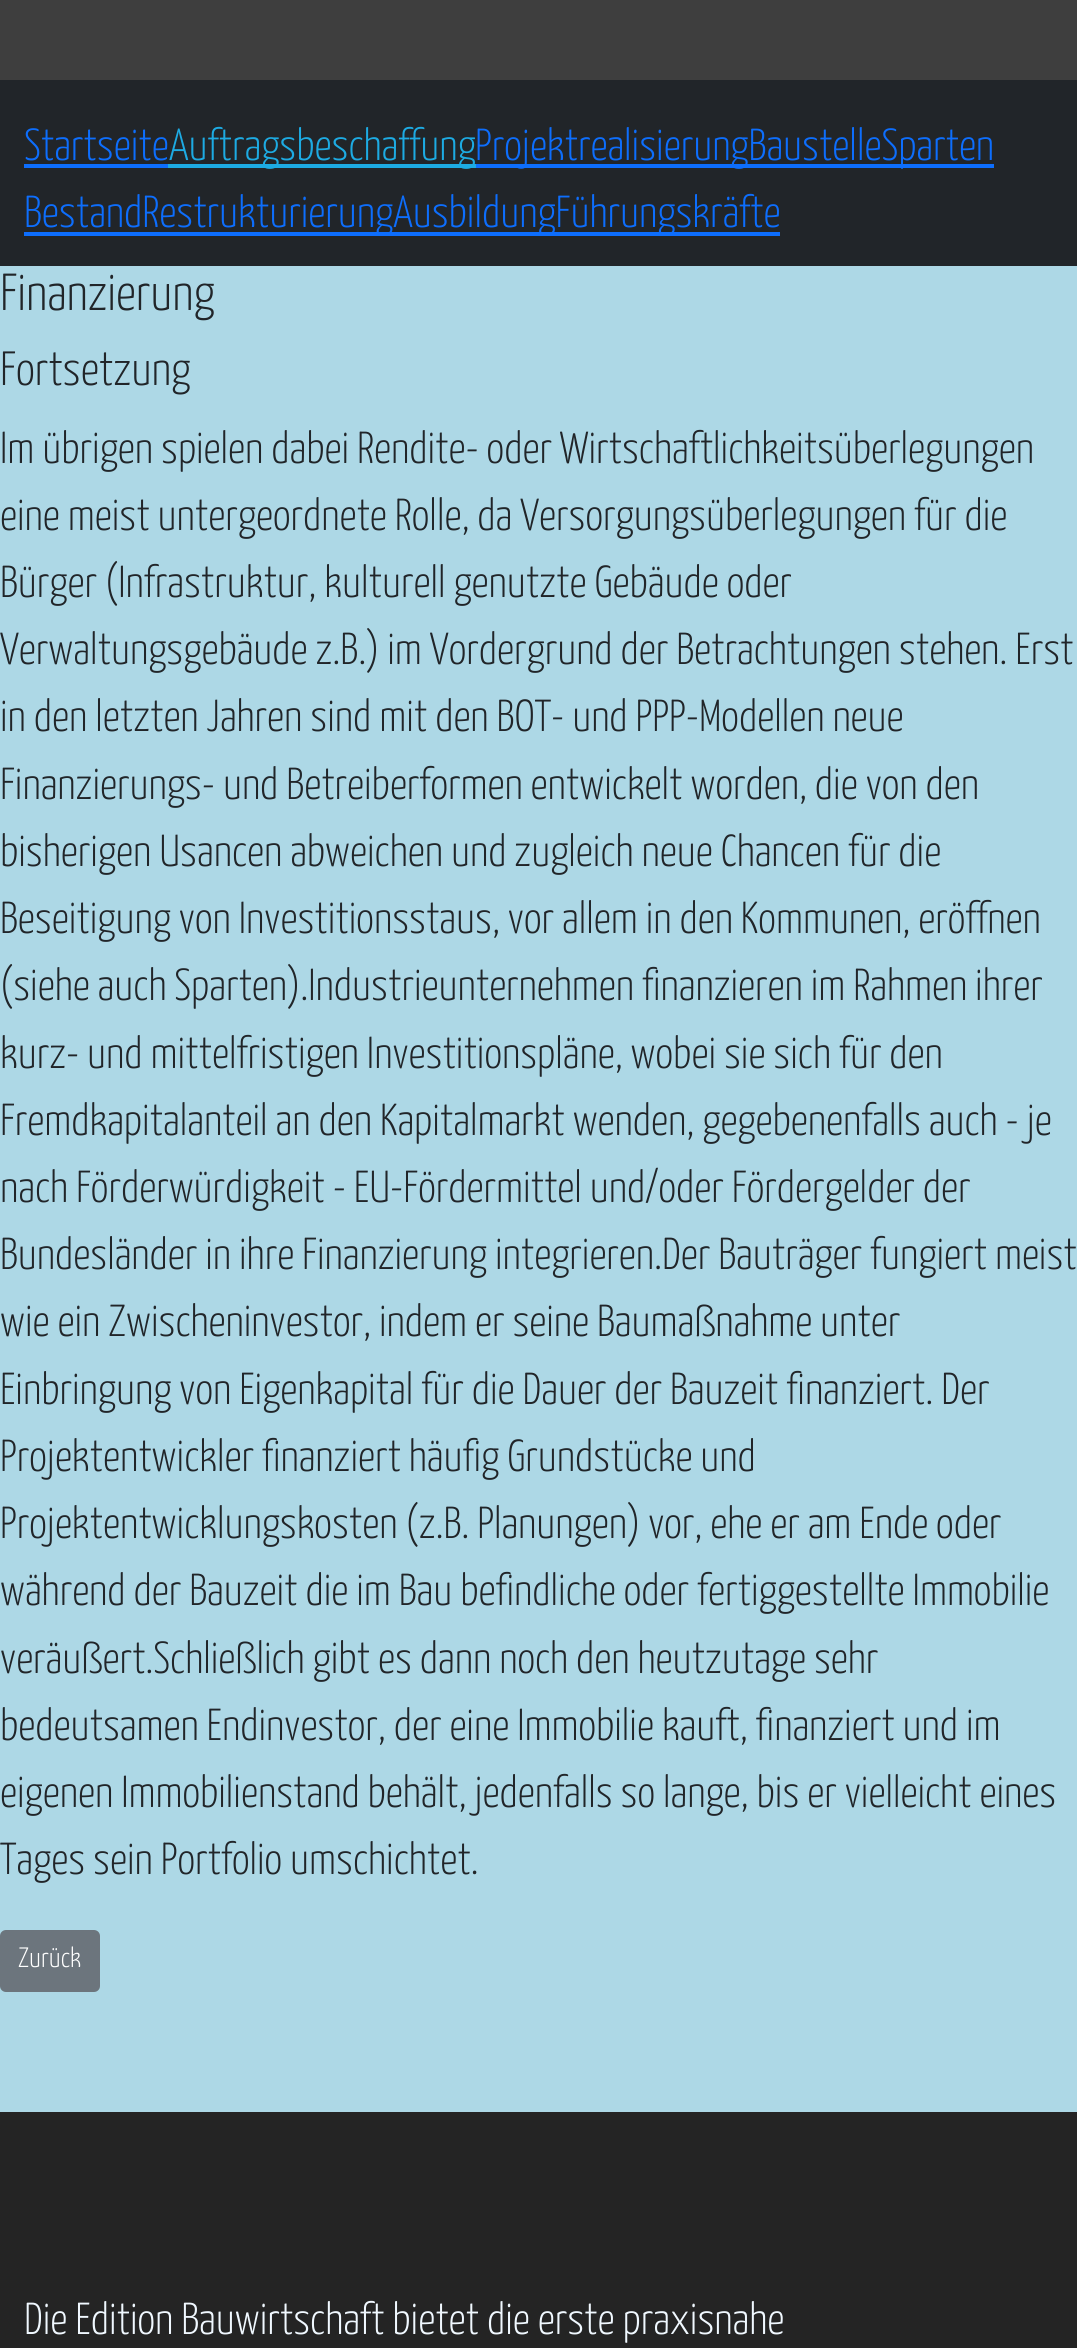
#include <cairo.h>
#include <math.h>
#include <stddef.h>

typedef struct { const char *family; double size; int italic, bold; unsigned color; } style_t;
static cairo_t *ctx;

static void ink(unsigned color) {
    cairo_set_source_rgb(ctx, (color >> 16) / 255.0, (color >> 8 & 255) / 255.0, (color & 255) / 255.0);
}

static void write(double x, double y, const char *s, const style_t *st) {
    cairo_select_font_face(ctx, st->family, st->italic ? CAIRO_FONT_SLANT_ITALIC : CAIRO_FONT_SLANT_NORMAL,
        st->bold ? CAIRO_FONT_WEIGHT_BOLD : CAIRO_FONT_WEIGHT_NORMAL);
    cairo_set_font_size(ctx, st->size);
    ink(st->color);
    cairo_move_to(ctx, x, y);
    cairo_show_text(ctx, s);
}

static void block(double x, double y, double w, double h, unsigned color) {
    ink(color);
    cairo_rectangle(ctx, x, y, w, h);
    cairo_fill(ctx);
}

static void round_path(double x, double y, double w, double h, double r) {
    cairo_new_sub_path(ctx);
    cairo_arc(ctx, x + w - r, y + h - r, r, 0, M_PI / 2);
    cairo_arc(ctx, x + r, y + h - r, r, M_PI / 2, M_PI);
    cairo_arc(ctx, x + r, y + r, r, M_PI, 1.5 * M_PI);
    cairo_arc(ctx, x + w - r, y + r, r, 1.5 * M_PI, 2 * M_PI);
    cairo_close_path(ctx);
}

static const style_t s1 = {"Yanone Kaffeesatz ExtraLight", 44.8, 0, 0, 0x0d6efd};
static const style_t s2 = {"Yanone Kaffeesatz ExtraLight", 44.8, 0, 0, 0x1dabe3};
static const style_t s3 = {"Yanone Kaffeesatz ExtraLight", 52, 0, 0, 0x212529};
static const style_t s4 = {"Yanone Kaffeesatz ExtraLight", 48, 0, 0, 0x212529};
static const style_t s5 = {"Yanone Kaffeesatz ExtraLight", 44.8, 0, 0, 0x212529};
static const style_t s6 = {"Yanone Kaffeesatz ExtraLight", 28, 0, 0, 0xffffff};
static const style_t s7 = {"Yanone Kaffeesatz ExtraLight", 44.8, 0, 0, 0xf0f8ff};

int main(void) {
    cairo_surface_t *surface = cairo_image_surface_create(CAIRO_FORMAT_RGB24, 1077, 2348);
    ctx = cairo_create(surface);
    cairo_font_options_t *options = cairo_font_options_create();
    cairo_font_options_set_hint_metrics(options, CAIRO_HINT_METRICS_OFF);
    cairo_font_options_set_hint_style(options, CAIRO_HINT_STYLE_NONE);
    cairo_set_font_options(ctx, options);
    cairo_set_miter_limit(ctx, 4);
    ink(0xadd8e6);
    cairo_paint(ctx);
    block(0, 0, 1077, 80, 0x3e3e3e);
    block(0, 80, 1077, 186, 0x212529);
    write(24, 160, "Startseite", &s1);
    block(24, 164, 144, 4, 0x0d6efd);
    block(168, 164, 308, 4, 0x1dabe3);
    write(169, 160, "Auftragsbeschaffung", &s2);
    block(476, 164, 518, 4, 0x0d6efd);
    write(475, 160, "ProjektrealisierungBaustelleSparten", &s1);
    block(24, 232, 756, 4, 0x0d6efd);
    write(24, 227, "BestandRestrukturierungAusbildungFührungskräfte", &s1);
    write(0, 310, "Finanzierung", &s3);
    write(0, 385, "Fortsetzung", &s4);
    write(0, 463, "Im übrigen spielen dabei Rendite- oder Wirtschaftlichkeitsüberlegungen", &s5);
    write(0, 530, "eine meist untergeordnete Rolle, da Versorgungsüberlegungen für die", &s5);
    write(0, 597, "Bürger (Infrastruktur, kulturell genutzte Gebäude oder", &s5);
    write(0, 664, "Verwaltungsgebäude z.B.) im Vordergrund der Betrachtungen stehen. Erst", &s5);
    write(0, 731, "in den letzten Jahren sind mit den BOT- und PPP-Modellen neue", &s5);
    write(0, 799, "Finanzierungs- und Betreiberformen entwickelt worden, die von den", &s5);
    write(0, 866, "bisherigen Usancen abweichen und zugleich neue Chancen für die", &s5);
    write(0, 933, "Beseitigung von Investitionsstaus, vor allem in den Kommunen, eröffnen", &s5);
    write(0, 1000, "(siehe auch Sparten).Industrieunternehmen finanzieren im Rahmen ihrer", &s5);
    write(0, 1068, "kurz- und mittelfristigen Investitionspläne, wobei sie sich für den", &s5);
    write(0, 1135, "Fremdkapitalanteil an den Kapitalmarkt wenden, gegebenenfalls auch - je", &s5);
    write(0, 1202, "nach Förderwürdigkeit - EU-Fördermittel und/oder Fördergelder der", &s5);
    write(0, 1269, "Bundesländer in ihre Finanzierung integrieren.Der Bauträger fungiert meist", &s5);
    write(0, 1336, "wie ein Zwischeninvestor, indem er seine Baumaßnahme unter", &s5);
    write(0, 1404, "Einbringung von Eigenkapital für die Dauer der Bauzeit finanziert. Der", &s5);
    write(0, 1471, "Projektentwickler finanziert häufig Grundstücke und", &s5);
    write(0, 1538, "Projektentwicklungskosten (z.B. Planungen) vor, ehe er am Ende oder", &s5);
    write(0, 1605, "während der Bauzeit die im Bau befindliche oder fertiggestellte Immobilie", &s5);
    write(0, 1673, "veräußert.Schließlich gibt es dann noch den heutzutage sehr", &s5);
    write(0, 1740, "bedeutsamen Endinvestor, der eine Immobilie kauft, finanziert und im", &s5);
    write(0, 1807, "eigenen Immobilienstand behält, jedenfalls so lange, bis er vielleicht eines", &s5);
    write(0, 1874, "Tages sein Portfolio umschichtet.", &s5);
    ink(0x6c757d);
    round_path(1, 1931, 98, 60, 5);
    cairo_fill_preserve(ctx);
    cairo_stroke(ctx);
    write(18, 1967, "Zurück", &s6);
    block(0, 2112, 1077, 236, 0x242424);
    write(24, 2334, "Die Edition Bauwirtschaft bietet die erste praxisnahe", &s7);
    cairo_surface_write_to_png(surface, "screenshot.png");
    cairo_font_options_destroy(options);
    cairo_destroy(ctx);
    cairo_surface_destroy(surface);
    return 0;
}
